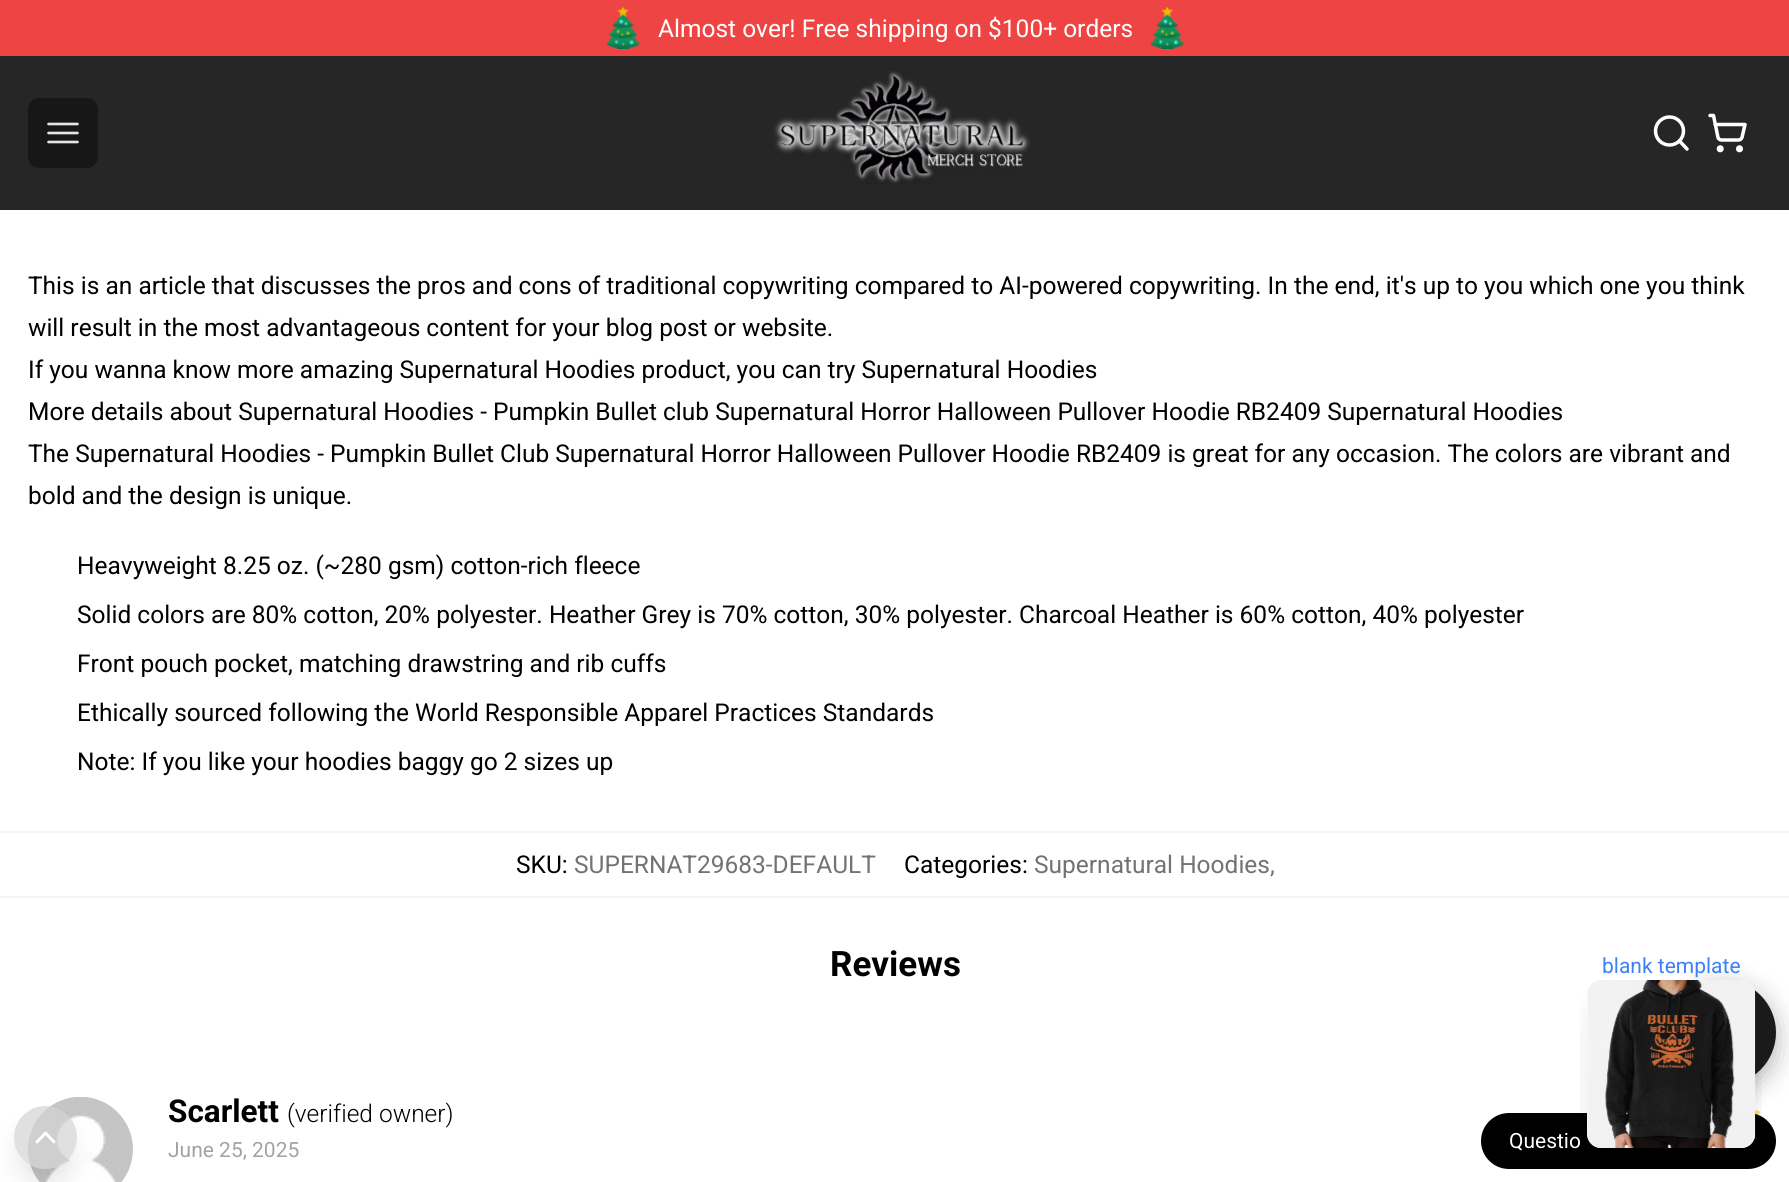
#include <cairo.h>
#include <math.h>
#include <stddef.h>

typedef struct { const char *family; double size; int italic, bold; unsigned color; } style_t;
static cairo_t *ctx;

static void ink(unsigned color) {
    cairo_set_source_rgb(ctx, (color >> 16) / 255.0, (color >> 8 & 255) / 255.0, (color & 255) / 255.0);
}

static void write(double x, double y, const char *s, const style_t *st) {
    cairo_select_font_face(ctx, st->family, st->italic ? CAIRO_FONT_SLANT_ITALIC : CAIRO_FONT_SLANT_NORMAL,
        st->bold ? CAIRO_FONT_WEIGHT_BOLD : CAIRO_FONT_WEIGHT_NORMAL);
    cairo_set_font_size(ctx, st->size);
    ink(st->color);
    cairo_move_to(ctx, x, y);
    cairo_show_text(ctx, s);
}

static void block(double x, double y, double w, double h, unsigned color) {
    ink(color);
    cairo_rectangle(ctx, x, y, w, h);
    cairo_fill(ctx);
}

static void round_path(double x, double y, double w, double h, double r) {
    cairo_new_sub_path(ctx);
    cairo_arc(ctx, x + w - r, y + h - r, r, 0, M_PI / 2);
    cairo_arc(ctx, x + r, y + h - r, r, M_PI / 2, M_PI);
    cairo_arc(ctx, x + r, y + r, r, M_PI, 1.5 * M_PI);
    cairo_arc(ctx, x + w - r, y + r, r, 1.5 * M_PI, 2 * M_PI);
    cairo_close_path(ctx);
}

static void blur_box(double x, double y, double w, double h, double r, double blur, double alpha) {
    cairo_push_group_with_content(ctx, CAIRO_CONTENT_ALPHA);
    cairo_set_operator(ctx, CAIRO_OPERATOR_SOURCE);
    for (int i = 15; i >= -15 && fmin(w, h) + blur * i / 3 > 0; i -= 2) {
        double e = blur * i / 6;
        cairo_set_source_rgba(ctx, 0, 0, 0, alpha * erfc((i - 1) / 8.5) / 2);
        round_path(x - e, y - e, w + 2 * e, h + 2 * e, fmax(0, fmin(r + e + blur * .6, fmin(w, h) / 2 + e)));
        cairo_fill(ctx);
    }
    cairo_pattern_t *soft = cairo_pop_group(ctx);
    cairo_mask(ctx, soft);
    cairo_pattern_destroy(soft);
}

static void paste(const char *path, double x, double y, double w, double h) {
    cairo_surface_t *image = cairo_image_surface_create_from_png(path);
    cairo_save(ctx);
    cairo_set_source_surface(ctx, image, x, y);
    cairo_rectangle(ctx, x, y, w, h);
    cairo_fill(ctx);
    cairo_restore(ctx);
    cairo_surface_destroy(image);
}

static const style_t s1 = {"Roboto", 24.5, 0, 0, 0xffffff};
static const style_t s2 = {"Roboto", 24.5, 0, 0, 0x000000};
static const style_t s3 = {"Roboto", 24.5, 0, 0, 0x737373};
static const style_t s4 = {"Roboto", 35, 0, 1, 0x000000};
static const style_t s5 = {"Roboto", 31.5, 0, 1, 0x000000};
static const style_t s6 = {"Roboto Light", 24.5, 0, 0, 0x000000};
static const style_t s7 = {"Roboto", 21, 0, 0, 0xa3a3a3};
static const style_t s8 = {"Roboto", 21, 0, 0, 0x3b82f6};
static const style_t s9 = {"Roboto", 21, 0, 0, 0xffffff};

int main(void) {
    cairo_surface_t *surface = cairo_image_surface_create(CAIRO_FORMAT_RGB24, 1789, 1182);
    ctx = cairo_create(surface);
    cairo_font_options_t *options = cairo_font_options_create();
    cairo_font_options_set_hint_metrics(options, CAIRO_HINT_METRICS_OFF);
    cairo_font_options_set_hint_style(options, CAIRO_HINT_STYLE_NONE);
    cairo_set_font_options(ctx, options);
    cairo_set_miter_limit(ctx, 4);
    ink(0xffffff);
    cairo_paint(ctx);
    block(0, 0, 1789, 56, 0xef4444);
    paste("pic1.png", 606, 7, 35, 42);
    write(658, 37, "Almost over! Free shipping on $100+ orders", &s1);
    paste("pic2.png", 1150, 7, 35, 42);
    block(0, 56, 1789, 154, 0x262626);
    ink(0x171717);
    round_path(28, 98, 70, 70, 11);
    cairo_fill(ctx);
    cairo_new_path(ctx);
    cairo_move_to(ctx, 48.5, 124);
    cairo_line_to(ctx, 77.5, 124);
    cairo_move_to(ctx, 48.5, 133);
    cairo_line_to(ctx, 77.5, 133);
    cairo_move_to(ctx, 48.5, 142);
    cairo_line_to(ctx, 77.5, 142);
    ink(0xe5e5e5);
    cairo_set_line_width(ctx, 2.6);
    cairo_set_line_cap(ctx, CAIRO_LINE_CAP_ROUND);
    cairo_set_line_join(ctx, CAIRO_LINE_JOIN_ROUND);
    cairo_stroke(ctx);
    paste("pic3.png", 774, 71, 257, 113);
    cairo_new_path(ctx);
    cairo_move_to(ctx, 1687, 149);
    cairo_line_to(ctx, 1679.5, 141);
    ink(0xffffff);
    cairo_set_line_width(ctx, 3.5);
    cairo_stroke(ctx);
    cairo_arc(ctx, 1669.5, 131, 14, 0, 2 * M_PI);
    cairo_set_line_cap(ctx, CAIRO_LINE_CAP_BUTT);
    cairo_set_line_join(ctx, CAIRO_LINE_JOIN_MITER);
    cairo_stroke(ctx);
    cairo_arc(ctx, 1720.2, 148.8, 1.8, 0, 2 * M_PI);
    cairo_stroke(ctx);
    cairo_arc(ctx, 1739.5, 148.8, 1.8, 0, 2 * M_PI);
    cairo_stroke(ctx);
    cairo_new_path(ctx);
    cairo_move_to(ctx, 1710, 115.5);
    cairo_line_to(ctx, 1713.5, 115.5);
    cairo_line_to(ctx, 1718, 137.5);
    cairo_curve_to(ctx, 1718.5, 139, 1720, 140, 1721.5, 140);
    cairo_line_to(ctx, 1738.5, 140);
    cairo_curve_to(ctx, 1740, 140, 1741.5, 139, 1742, 137.5);
    cairo_line_to(ctx, 1745, 124.5);
    cairo_line_to(ctx, 1715, 124.5);
    cairo_set_line_cap(ctx, CAIRO_LINE_CAP_ROUND);
    cairo_set_line_join(ctx, CAIRO_LINE_JOIN_ROUND);
    cairo_stroke(ctx);
    write(28, 294, "This is an article that discusses the pros and cons of traditional copywriting compared to AI-powered copywriting. In the end, it's up to you which one you think", &s2);
    write(28, 336, "will result in the most advantageous content for your blog post or website.", &s2);
    write(28, 378, "If you wanna know more amazing Supernatural Hoodies product, you can try Supernatural Hoodies", &s2);
    write(28, 420, "More details about Supernatural Hoodies - Pumpkin Bullet club Supernatural Horror Halloween Pullover Hoodie RB2409 Supernatural Hoodies", &s2);
    write(28, 462, "The Supernatural Hoodies - Pumpkin Bullet Club Supernatural Horror Halloween Pullover Hoodie RB2409 is great for any occasion. The colors are vibrant and", &s2);
    write(28, 504, "bold and the design is unique.", &s2);
    write(77, 574, "Heavyweight 8.25 oz. (~280 gsm) cotton-rich fleece", &s2);
    write(77, 623, "Solid colors are 80% cotton, 20% polyester. Heather Grey is 70% cotton, 30% polyester. Charcoal Heather is 60% cotton, 40% polyester", &s2);
    write(77, 672, "Front pouch pocket, matching drawstring and rib cuffs", &s2);
    write(77, 721, "Ethically sourced following the World Responsible Apparel Practices Standards", &s2);
    write(77, 770, "Note: If you like your hoodies baggy go 2 sizes up", &s2);
    block(0, 831, 1789, 2, 0xf5f5f5);
    block(0, 896, 1789, 2, 0xf5f5f5);
    write(516, 873, "SKU:", &s2);
    write(574, 873, "SUPERNAT29683-DEFAULT", &s3);
    write(904, 873, "Categories:", &s2);
    write(1034, 873, "Supernatural Hoodies,", &s3);
    write(830, 976, "Reviews", &s4);
    paste("pic4.png", 28, 1097, 105, 85);
    write(168, 1122, "Scarlett", &s5);
    write(287, 1122, "(verified owner)", &s6);
    write(168, 1157, "June 25, 2025", &s7);
    paste("pic5.png", 1755, 1110, 5, 5);
    paste("pic6.png", 1755, 1110, 5, 5);
    ink(0x000000);
    round_path(1481, 1113, 295, 56, 28);
    cairo_fill(ctx);
    ink(0x000000);
    blur_box(1671, 987, 105, 105, 52.5, 13, 0.3);
    ink(0x1a1a1a);
    cairo_arc(ctx, 1723.5, 1032.5, 52.5, 0, 2 * M_PI);
    cairo_fill(ctx);
    cairo_save(ctx);
    cairo_rectangle(ctx, 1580, 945, 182, 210);
    cairo_clip(ctx);
    ink(0x000000);
    blur_box(1598, 1005, 147, 147, 4, 9, 0.1);
    blur_box(1596, 1024, 151, 150, 5, 22, 0.1);
    cairo_restore(ctx);
    ink(0xffffff);
    round_path(1587, 980, 168, 168, 14);
    cairo_fill(ctx);
    paste("pic7.png", 1587, 980, 169, 168);
    write(1602, 973, "blank template", &s8);
    cairo_save(ctx);
    cairo_set_fill_rule(ctx, CAIRO_FILL_RULE_EVEN_ODD);
    cairo_new_path(ctx);
    cairo_move_to(ctx, 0, 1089);
    cairo_line_to(ctx, 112, 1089);
    cairo_line_to(ctx, 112, 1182);
    cairo_line_to(ctx, 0, 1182);
    cairo_close_path(ctx);
    cairo_move_to(ctx, 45.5, 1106);
    cairo_curve_to(ctx, 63, 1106, 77, 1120, 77, 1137.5);
    cairo_curve_to(ctx, 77, 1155, 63, 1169, 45.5, 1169);
    cairo_curve_to(ctx, 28, 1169, 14, 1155, 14, 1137.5);
    cairo_curve_to(ctx, 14, 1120, 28, 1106, 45.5, 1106);
    cairo_close_path(ctx);
    cairo_clip(ctx);
    ink(0x000000);
    blur_box(19, 1129, 53, 52, 26, 13, 0.1);
    cairo_restore(ctx);
    cairo_set_source_rgba(ctx, 0.831, 0.831, 0.831, 0.7);
    cairo_arc(ctx, 45.5, 1137.5, 31.5, 0, 2 * M_PI);
    cairo_fill(ctx);
    cairo_new_path(ctx);
    cairo_move_to(ctx, 54, 1142);
    cairo_line_to(ctx, 45.5, 1133);
    cairo_line_to(ctx, 37, 1142);
    ink(0xffffff);
    cairo_set_line_width(ctx, 2.9);
    cairo_stroke(ctx);
    write(1509, 1148, "Questio", &s9);
    cairo_surface_write_to_png(surface, "screenshot.png");
    cairo_font_options_destroy(options);
    cairo_destroy(ctx);
    cairo_surface_destroy(surface);
    return 0;
}
